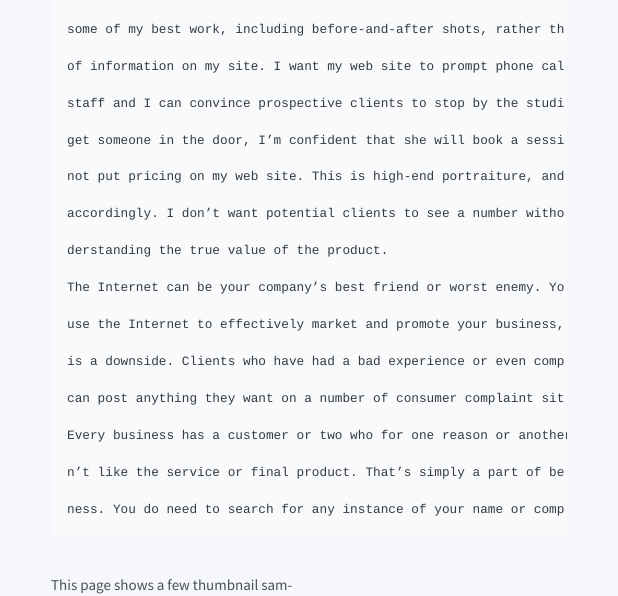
#include <cairo.h>
#include <math.h>
#include <stddef.h>

typedef struct { const char *family; double size; int italic, bold; unsigned color; } style_t;
static cairo_t *ctx;

static void ink(unsigned color) {
    cairo_set_source_rgb(ctx, (color >> 16) / 255.0, (color >> 8 & 255) / 255.0, (color & 255) / 255.0);
}

static void write(double x, double y, const char *s, const style_t *st) {
    cairo_select_font_face(ctx, st->family, st->italic ? CAIRO_FONT_SLANT_ITALIC : CAIRO_FONT_SLANT_NORMAL,
        st->bold ? CAIRO_FONT_WEIGHT_BOLD : CAIRO_FONT_WEIGHT_NORMAL);
    cairo_set_font_size(ctx, st->size);
    ink(st->color);
    cairo_move_to(ctx, x, y);
    cairo_show_text(ctx, s);
}

static void round_path(double x, double y, double w, double h, double r) {
    cairo_new_sub_path(ctx);
    cairo_arc(ctx, x + w - r, y + h - r, r, 0, M_PI / 2);
    cairo_arc(ctx, x + r, y + h - r, r, M_PI / 2, M_PI);
    cairo_arc(ctx, x + r, y + r, r, M_PI, 1.5 * M_PI);
    cairo_arc(ctx, x + w - r, y + r, r, 1.5 * M_PI, 2 * M_PI);
    cairo_close_path(ctx);
}

static const style_t s1 = {"Liberation Mono", 12.75, 0, 0, 0x343a40};
static const style_t s2 = {"Source Sans Pro", 15, 0, 0, 0x495057};

int main(void) {
    cairo_surface_t *surface = cairo_image_surface_create(CAIRO_FORMAT_RGB24, 618, 596);
    ctx = cairo_create(surface);
    cairo_font_options_t *options = cairo_font_options_create();
    cairo_font_options_set_hint_metrics(options, CAIRO_HINT_METRICS_OFF);
    cairo_font_options_set_hint_style(options, CAIRO_HINT_STYLE_NONE);
    cairo_set_font_options(ctx, options);
    cairo_set_miter_limit(ctx, 4);
    ink(0xf5f7fb);
    cairo_paint(ctx);
    ink(0xf8fafc);
    round_path(51, -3, 516, 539, 3);
    cairo_fill(ctx);
    write(67, 33, "some of my best work, including before-and-after shots, rather th", &s1);
    write(67, 70, "of information on my site. I want my web site to prompt phone cal", &s1);
    write(67, 107, "staff and I can convince prospective clients to stop by the studi", &s1);
    write(67, 144, "get someone in the door, I’m confident that she will book a sessi", &s1);
    write(67, 180, "not put pricing on my web site. This is high-end portraiture, and", &s1);
    write(67, 217, "accordingly. I don’t want potential clients to see a number witho", &s1);
    write(67, 254, "derstanding the true value of the product.", &s1);
    write(67, 291, "The Internet can be your company’s best friend or worst enemy. Yo", &s1);
    write(67, 328, "use the Internet to effectively market and promote your business,", &s1);
    write(67, 365, "is a downside. Clients who have had a bad experience or even comp", &s1);
    write(67, 402, "can post anything they want on a number of consumer complaint sit", &s1);
    cairo_save(ctx);
    round_path(51, -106, 516, 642, 3);
    cairo_clip(ctx);
    write(67, 439, "Every business has a customer or two who for one reason or another", &s1);
    cairo_restore(ctx);
    write(67, 476, "n’t like the service or final product. That’s simply a part of be", &s1);
    write(67, 513, "ness. You do need to search for any instance of your name or comp", &s1);
    write(51, 590, "This page shows a few thumbnail sam-", &s2);
    cairo_surface_write_to_png(surface, "screenshot.png");
    cairo_font_options_destroy(options);
    cairo_destroy(ctx);
    cairo_surface_destroy(surface);
    return 0;
}
